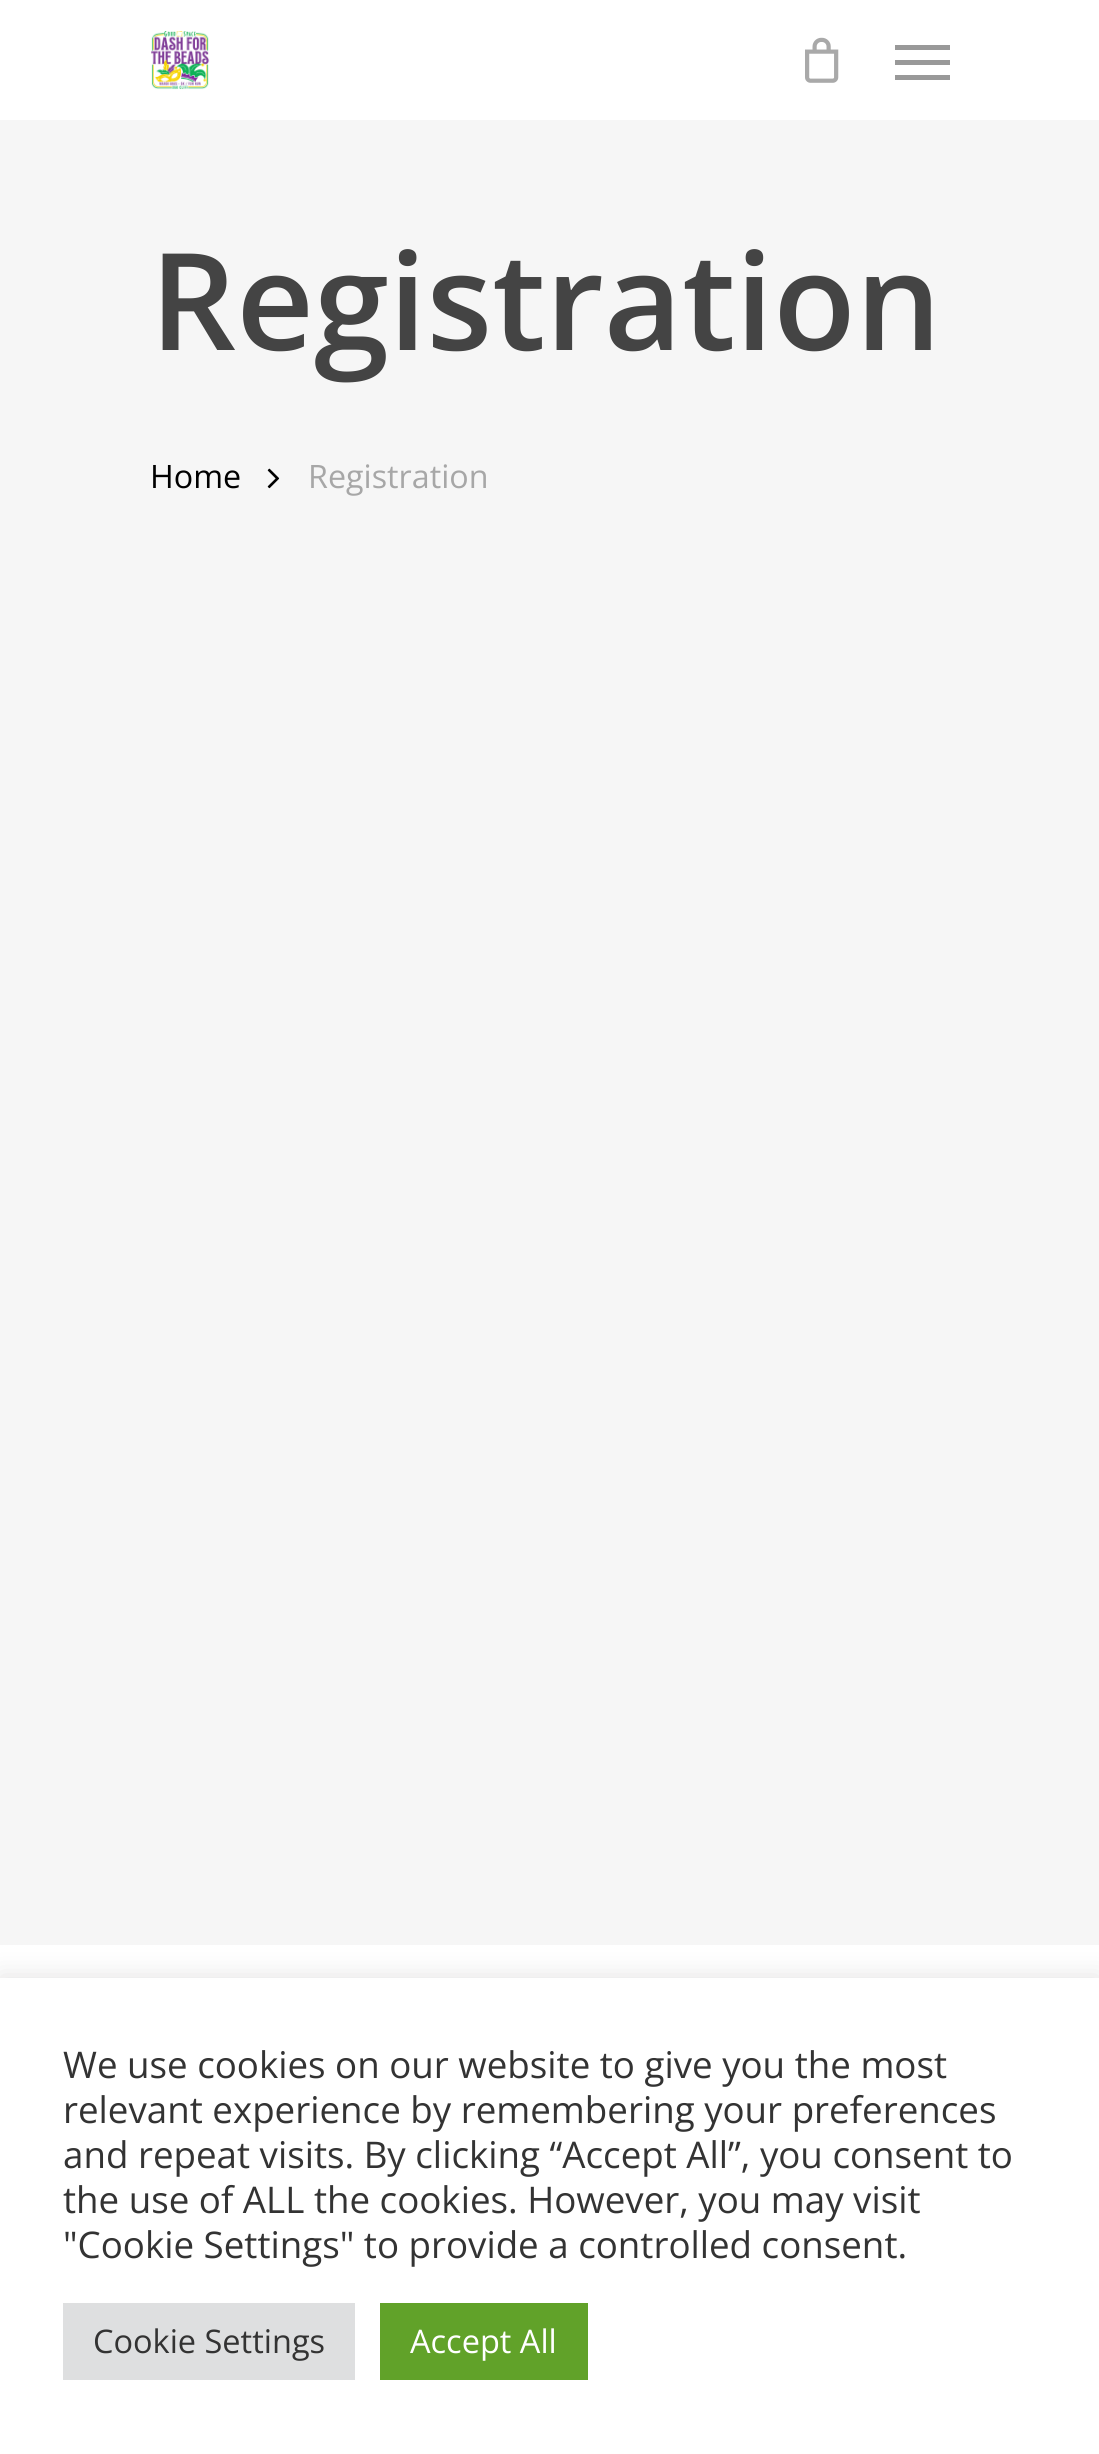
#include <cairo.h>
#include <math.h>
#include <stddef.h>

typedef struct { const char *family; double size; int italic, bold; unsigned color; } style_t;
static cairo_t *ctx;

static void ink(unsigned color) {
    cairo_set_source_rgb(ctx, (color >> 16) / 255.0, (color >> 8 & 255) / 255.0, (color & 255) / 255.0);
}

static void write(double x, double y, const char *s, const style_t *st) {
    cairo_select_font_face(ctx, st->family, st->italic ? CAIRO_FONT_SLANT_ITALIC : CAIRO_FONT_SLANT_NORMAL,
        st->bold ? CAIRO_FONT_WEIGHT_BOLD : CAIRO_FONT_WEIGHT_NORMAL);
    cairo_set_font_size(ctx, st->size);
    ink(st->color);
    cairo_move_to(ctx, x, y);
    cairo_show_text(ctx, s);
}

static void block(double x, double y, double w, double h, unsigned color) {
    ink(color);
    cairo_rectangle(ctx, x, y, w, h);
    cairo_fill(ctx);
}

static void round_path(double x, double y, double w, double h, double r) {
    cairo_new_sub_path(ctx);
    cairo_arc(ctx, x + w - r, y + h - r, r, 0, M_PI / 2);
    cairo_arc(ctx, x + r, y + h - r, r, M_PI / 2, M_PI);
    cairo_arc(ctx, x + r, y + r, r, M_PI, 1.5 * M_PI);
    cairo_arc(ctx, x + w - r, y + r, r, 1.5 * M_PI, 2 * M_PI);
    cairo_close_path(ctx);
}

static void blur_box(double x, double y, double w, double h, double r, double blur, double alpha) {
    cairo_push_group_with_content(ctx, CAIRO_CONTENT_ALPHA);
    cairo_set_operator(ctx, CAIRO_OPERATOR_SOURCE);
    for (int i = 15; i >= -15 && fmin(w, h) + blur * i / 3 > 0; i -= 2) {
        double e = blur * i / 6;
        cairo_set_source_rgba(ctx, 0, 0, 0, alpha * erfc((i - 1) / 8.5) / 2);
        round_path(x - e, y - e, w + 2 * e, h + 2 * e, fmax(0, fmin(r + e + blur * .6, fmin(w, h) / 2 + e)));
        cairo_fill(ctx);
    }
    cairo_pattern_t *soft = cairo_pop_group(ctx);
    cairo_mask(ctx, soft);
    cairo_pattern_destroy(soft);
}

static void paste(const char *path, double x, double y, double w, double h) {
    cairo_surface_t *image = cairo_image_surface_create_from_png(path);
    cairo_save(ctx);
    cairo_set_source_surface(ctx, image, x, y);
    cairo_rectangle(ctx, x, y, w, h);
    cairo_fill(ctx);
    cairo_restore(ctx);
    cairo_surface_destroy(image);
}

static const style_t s1 = {"Open Sans SemiBold", 135, 0, 0, 0x444444};
static const style_t s2 = {"Open Sans", 32.25, 0, 0, 0x000000};
static const style_t s3 = {"Open Sans", 32.25, 0, 0, 0xa7a7a7};
static const style_t s4 = {"Open Sans", 36.7, 0, 0, 0x333333};
static const style_t s5 = {"Open Sans", 32.5, 0, 0, 0x333333};
static const style_t s6 = {"Open Sans", 32.5, 0, 0, 0xffffff};

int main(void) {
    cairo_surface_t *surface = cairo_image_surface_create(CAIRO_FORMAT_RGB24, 1099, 2454);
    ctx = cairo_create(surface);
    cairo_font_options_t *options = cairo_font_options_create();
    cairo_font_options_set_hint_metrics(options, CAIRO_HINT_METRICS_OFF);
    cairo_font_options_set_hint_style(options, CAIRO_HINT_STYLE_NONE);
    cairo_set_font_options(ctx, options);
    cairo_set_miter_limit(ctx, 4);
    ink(0xffffff);
    cairo_paint(ctx);
    paste("pic1.png", 151, 31, 59, 59);
    paste("pic2.png", 805, 37, 34, 46);
    block(895, 45, 55, 5, 0x999999);
    block(895, 75, 55, 5, 0x999999);
    block(895, 60, 55, 5, 0x999999);
    block(0, 120, 1099, 1825, 0xf6f6f6);
    write(150, 350, "Registration", &s1);
    write(150, 488, "Home", &s2);
    paste("pic3.png", 267, 468, 13, 21);
    write(308, 488, "Registration", &s3);
    ink(0xacabab);
    blur_box(0, 1975, 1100, 478, 0, 12.5, 0.3);
    block(0, 1978, 1099, 476, 0xffffff);
    write(63, 2078, "We use cookies on our website to give you the most", &s4);
    write(63, 2123, "relevant experience by remembering your preferences", &s4);
    write(63, 2168, "and repeat visits. By clicking “Accept All”, you consent to", &s4);
    write(63, 2213, "the use of ALL the cookies. However, you may visit", &s4);
    write(63, 2258, "\"Cookie Settings\" to provide a controlled consent.", &s4);
    block(63, 2303, 292, 77, 0xdedfe0);
    write(93, 2353, "Cookie Settings", &s5);
    block(380, 2303, 208, 77, 0x61a229);
    write(410, 2353, "Accept All", &s6);
    cairo_surface_write_to_png(surface, "screenshot.png");
    cairo_font_options_destroy(options);
    cairo_destroy(ctx);
    cairo_surface_destroy(surface);
    return 0;
}
